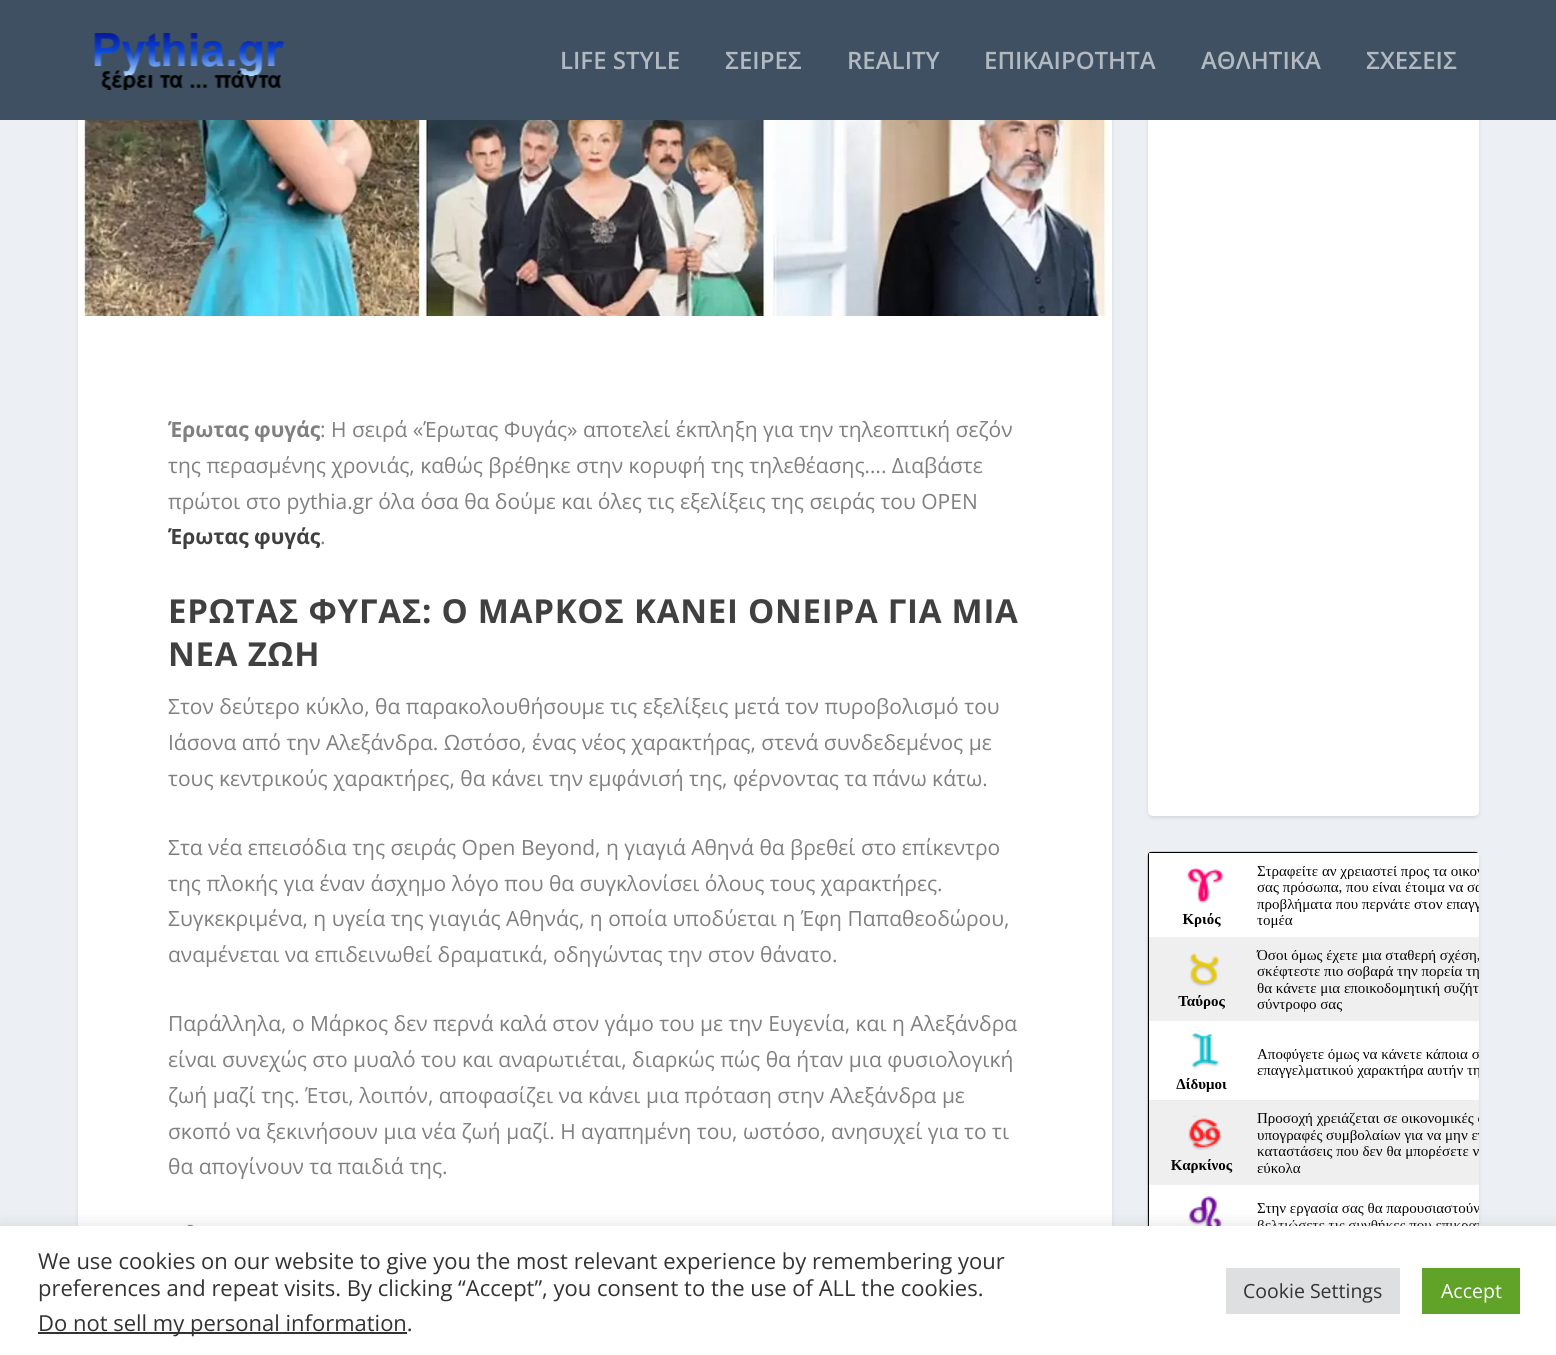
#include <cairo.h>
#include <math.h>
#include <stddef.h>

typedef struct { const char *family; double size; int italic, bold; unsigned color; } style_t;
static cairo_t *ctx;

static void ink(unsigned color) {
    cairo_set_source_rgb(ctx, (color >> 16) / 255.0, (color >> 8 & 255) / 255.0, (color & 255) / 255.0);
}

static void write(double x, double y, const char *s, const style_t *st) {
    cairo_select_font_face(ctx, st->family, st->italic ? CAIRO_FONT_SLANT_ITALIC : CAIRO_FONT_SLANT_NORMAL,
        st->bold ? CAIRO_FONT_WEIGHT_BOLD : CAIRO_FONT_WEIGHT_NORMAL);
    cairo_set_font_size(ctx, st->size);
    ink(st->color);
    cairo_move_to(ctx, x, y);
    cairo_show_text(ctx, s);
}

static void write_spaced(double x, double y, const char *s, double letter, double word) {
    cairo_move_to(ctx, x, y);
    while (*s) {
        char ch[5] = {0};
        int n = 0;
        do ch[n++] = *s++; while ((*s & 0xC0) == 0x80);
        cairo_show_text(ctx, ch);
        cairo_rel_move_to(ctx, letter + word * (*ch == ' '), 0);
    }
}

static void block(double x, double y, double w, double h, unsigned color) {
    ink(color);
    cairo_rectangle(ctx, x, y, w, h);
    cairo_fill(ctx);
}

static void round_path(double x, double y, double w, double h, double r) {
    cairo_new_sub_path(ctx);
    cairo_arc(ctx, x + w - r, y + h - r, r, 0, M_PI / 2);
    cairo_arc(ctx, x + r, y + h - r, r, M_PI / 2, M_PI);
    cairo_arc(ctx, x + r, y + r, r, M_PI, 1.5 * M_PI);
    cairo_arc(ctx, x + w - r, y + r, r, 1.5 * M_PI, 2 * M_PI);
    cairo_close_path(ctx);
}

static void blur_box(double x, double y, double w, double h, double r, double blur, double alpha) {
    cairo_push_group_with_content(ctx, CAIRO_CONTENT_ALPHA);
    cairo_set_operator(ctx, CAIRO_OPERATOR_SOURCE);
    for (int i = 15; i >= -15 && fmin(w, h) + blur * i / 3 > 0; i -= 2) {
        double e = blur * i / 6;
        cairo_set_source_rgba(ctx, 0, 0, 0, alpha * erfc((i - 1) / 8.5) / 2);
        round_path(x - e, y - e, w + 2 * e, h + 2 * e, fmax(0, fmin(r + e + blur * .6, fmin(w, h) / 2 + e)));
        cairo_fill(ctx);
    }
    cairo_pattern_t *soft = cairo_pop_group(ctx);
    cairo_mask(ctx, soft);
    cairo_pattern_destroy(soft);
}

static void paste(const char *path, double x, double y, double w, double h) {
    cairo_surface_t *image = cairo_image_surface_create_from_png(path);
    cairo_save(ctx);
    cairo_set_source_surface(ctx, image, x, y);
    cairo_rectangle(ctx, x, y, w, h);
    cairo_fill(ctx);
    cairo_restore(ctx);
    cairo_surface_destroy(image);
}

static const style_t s1 = {"Open Sans SemiBold", 24, 0, 0, 0xb2b9c0};
static const style_t s2 = {"Open Sans", 21, 0, 1, 0x808080};
static const style_t s3 = {"Open Sans", 21, 0, 0, 0x808080};
static const style_t s4 = {"Open Sans", 21, 0, 1, 0x404040};
static const style_t s5 = {"Open Sans", 22, 0, 0, 0x333333};
static const style_t s6 = {"Open Sans", 19.5, 0, 0, 0x333333};
static const style_t s7 = {"Open Sans", 19.5, 0, 0, 0xffffff};

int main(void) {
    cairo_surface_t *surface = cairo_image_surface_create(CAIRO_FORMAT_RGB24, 1556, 1355);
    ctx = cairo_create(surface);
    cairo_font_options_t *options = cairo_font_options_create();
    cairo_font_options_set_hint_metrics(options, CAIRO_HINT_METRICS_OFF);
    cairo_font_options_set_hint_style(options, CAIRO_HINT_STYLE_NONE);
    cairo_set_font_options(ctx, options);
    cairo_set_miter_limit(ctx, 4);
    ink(0xecf0f5);
    cairo_paint(ctx);
    ink(0x000000);
    blur_box(78, -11, 1034, 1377, 5, 2, 0.1);
    blur_box(1148, 53, 331, 765, 5, 2, 0.1);
    ink(0xffffff);
    round_path(1148, 51, 331, 765, 5);
    cairo_fill(ctx);
    block(0, 0, 1556, 120, 0x3e5062);
    paste("pic1.png", 94, 33, 191, 57);
    write(560, 69, "LIFE STYLE", &s1);
    write(725, 69, "ΣΕΙΡΕΣ", &s1);
    write(847, 69, "REALITY", &s1);
    write(984, 69, "ΕΠΙΚΑΙΡΟΤΗΤΑ", &s1);
    write(1201, 69, "ΑΘΛΗΤΙΚΑ", &s1);
    write(1366, 69, "ΣΧΕΣΕΙΣ", &s1);
    block(78, 120, 1034, 1106, 0xffffff);
    paste("pic2.png", 81, 120, 1028, 196);
    write(168, 437, "Έρωτας φυγάς", &s2);
    write(320, 437, ": Η σειρά «Έρωτας Φυγάς» αποτελεί έκπληξη για την τηλεοπτική σεζόν", &s3);
    write(168, 473, "της περασμένης χρονιάς, καθώς βρέθηκε στην κορυφή της τηλεθέασης…. Διαβάστε", &s3);
    write(168, 509, "πρώτοι στο pythia.gr όλα όσα θα δούμε και όλες τις εξελίξεις της σειράς του OPEN", &s3);
    write(168, 544, "Έρωτας φυγάς", &s4);
    write(320, 544, ".", &s3);
    cairo_select_font_face(ctx, "Open Sans", CAIRO_FONT_SLANT_NORMAL, CAIRO_FONT_WEIGHT_BOLD);
    cairo_set_font_size(ctx, 33);
    ink(0x404040);
    write_spaced(168, 623, "ΕΡΩΤΑΣ ΦΥΓΑΣ: Ο ΜΑΡΚΟΣ ΚΑΝΕΙ ΟΝΕΙΡΑ ΓΙΑ ΜΙΑ", 0.75, 0);
    write_spaced(168, 666, "ΝΕΑ ΖΩΗ", 0.75, 0);
    write(168, 714, "Στον δεύτερο κύκλο, θα παρακολουθήσουμε τις εξελίξεις μετά τον πυροβολισμό του", &s3);
    write(168, 750, "Ιάσονα από την Αλεξάνδρα. Ωστόσο, ένας νέος χαρακτήρας, στενά συνδεδεμένος με", &s3);
    write(168, 786, "τους κεντρικούς χαρακτήρες, θα κάνει την εμφάνισή της, φέρνοντας τα πάνω κάτω.", &s3);
    write(168, 855, "Στα νέα επεισόδια της σειράς Open Beyond, η γιαγιά Αθηνά θα βρεθεί στο επίκεντρο", &s3);
    write(168, 891, "της πλοκής για έναν άσχημο λόγο που θα συγκλονίσει όλους τους χαρακτήρες.", &s3);
    write(168, 926, "Συγκεκριμένα, η υγεία της γιαγιάς Αθηνάς, η οποία υποδύεται η Έφη Παπαθεοδώρου,", &s3);
    write(168, 962, "αναμένεται να επιδεινωθεί δραματικά, οδηγώντας την στον θάνατο.", &s3);
    write(168, 1031, "Παράλληλα, ο Μάρκος δεν περνά καλά στον γάμο του με την Ευγενία, και η Αλεξάνδρα", &s3);
    write(168, 1067, "είναι συνεχώς στο μυαλό του και αναρωτιέται, διαρκώς πώς θα ήταν μια φυσιολογική", &s3);
    write(168, 1103, "ζωή μαζί της. Έτσι, λοιπόν, αποφασίζει να κάνει μια πρόταση στην Αλεξάνδρα με", &s3);
    write(168, 1139, "σκοπό να ξεκινήσουν μια νέα ζωή μαζί. Η αγαπημένη του, ωστόσο, ανησυχεί για το τι", &s3);
    write(168, 1174, "θα απογίνουν τα παιδιά της.", &s3);
    paste("pic3.png", 187, 1224, 6, 2);
    ink(0x000000);
    blur_box(1148, 854, 331, 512, 5, 2, 0.1);
    paste("pic4.png", 1147, 851, 332, 375);
    ink(0xacabab);
    blur_box(0, 1224, 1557, 131, 0, 7.5, 0.3);
    block(0, 1226, 1556, 129, 0xffffff);
    write(38, 1269, "We use cookies on our website to give you the most relevant experience by remembering your", &s5);
    write(38, 1296, "preferences and repeat visits. By clicking “Accept”, you consent to the use of ALL the cookies.", &s5);
    block(38, 1332, 369, 2, 0x333333);
    write(38, 1331, "Do not sell my personal information.", &s5);
    block(1226, 1268, 174, 46, 0xdedfe0);
    write(1243, 1298, "Cookie Settings", &s6);
    block(1422, 1268, 98, 46, 0x61a229);
    write(1441, 1298, "Accept", &s7);
    cairo_surface_write_to_png(surface, "screenshot.png");
    cairo_font_options_destroy(options);
    cairo_destroy(ctx);
    cairo_surface_destroy(surface);
    return 0;
}
